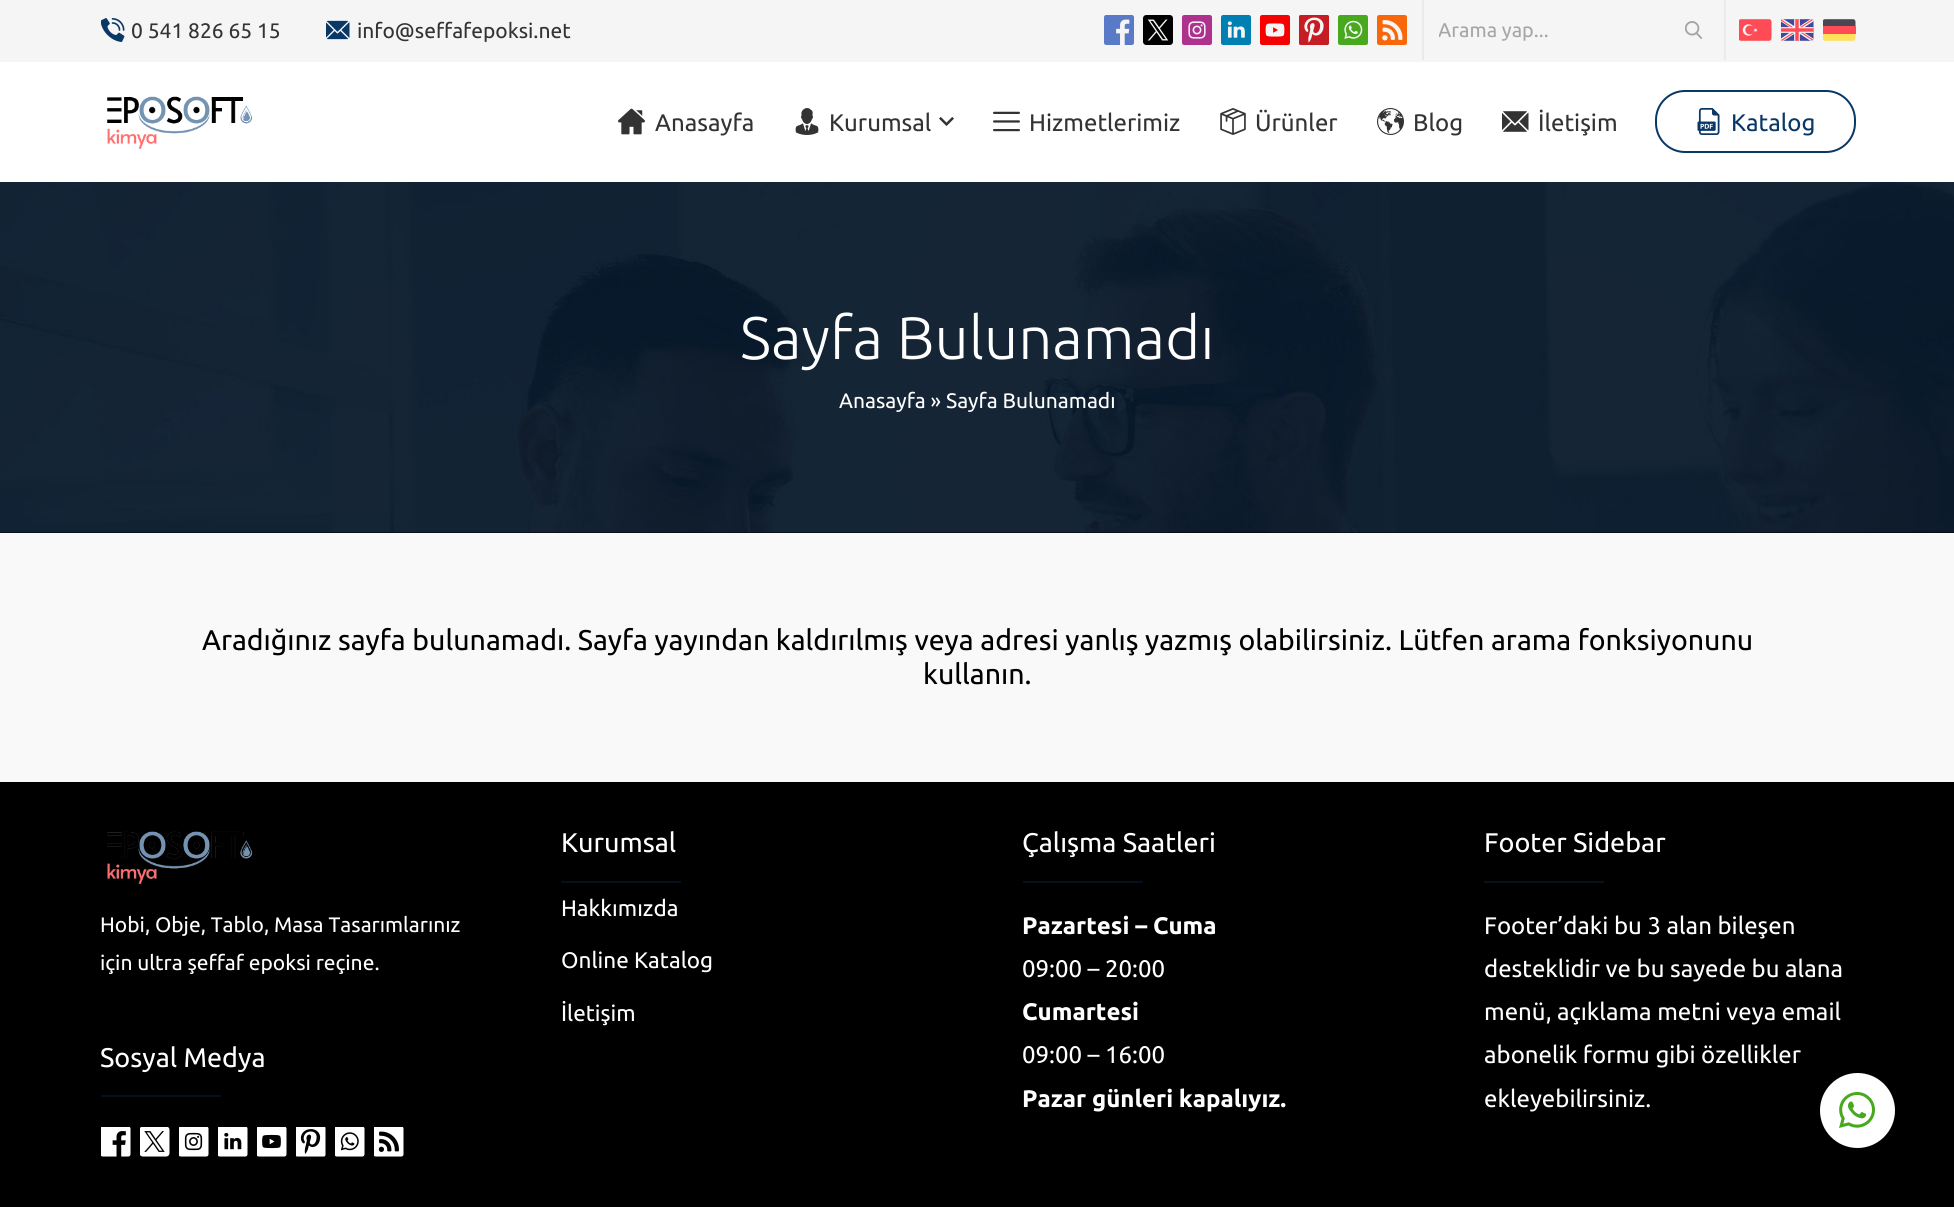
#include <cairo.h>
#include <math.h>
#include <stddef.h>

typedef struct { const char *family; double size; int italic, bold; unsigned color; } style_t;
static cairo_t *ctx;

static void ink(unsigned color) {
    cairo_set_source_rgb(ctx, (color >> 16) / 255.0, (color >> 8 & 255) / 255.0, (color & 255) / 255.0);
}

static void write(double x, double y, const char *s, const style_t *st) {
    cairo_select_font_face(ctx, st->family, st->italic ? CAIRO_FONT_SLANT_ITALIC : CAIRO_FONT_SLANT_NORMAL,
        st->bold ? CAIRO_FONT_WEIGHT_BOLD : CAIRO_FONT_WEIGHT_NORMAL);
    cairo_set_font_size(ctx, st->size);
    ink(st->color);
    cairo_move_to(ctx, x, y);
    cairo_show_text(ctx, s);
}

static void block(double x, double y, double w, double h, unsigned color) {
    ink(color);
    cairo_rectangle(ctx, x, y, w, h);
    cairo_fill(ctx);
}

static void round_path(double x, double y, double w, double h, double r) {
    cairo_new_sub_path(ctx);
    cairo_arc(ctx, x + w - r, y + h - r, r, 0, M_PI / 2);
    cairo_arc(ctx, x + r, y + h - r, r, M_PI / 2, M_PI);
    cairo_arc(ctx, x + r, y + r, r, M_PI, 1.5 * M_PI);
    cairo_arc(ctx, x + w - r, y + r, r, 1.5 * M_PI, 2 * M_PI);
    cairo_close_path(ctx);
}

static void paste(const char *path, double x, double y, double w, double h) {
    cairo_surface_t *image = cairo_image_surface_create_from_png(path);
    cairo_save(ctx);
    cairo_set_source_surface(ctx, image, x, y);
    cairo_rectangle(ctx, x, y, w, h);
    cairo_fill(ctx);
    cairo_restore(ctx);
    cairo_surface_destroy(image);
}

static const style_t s1 = {"Ubuntu", 21, 0, 0, 0x333333};
static const style_t s2 = {"Ubuntu", 20, 0, 0, 0xa6a6a6};
static const style_t s3 = {"Ubuntu", 24, 0, 0, 0x333333};
static const style_t s4 = {"Ubuntu", 24, 0, 0, 0x093766};
static const style_t s5 = {"Ubuntu Light", 60, 0, 0, 0xffffff};
static const style_t s6 = {"Ubuntu", 21, 0, 0, 0xffffff};
static const style_t s7 = {"Ubuntu", 28.5, 0, 0, 0x000000};
static const style_t s8 = {"Ubuntu", 27, 0, 0, 0xffffff};
static const style_t s9 = {"Ubuntu", 22.5, 0, 0, 0xffffff};
static const style_t s10 = {"Ubuntu", 24, 0, 1, 0xffffff};
static const style_t s11 = {"Ubuntu", 24, 0, 0, 0xffffff};

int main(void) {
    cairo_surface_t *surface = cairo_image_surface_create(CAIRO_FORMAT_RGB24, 1954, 1207);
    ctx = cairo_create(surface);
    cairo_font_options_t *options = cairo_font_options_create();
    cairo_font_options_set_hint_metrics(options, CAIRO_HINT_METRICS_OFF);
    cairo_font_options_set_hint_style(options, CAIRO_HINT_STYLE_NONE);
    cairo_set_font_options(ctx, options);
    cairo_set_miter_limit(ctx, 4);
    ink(0xf9f9f9);
    cairo_paint(ctx);
    block(0, 0, 1954, 62, 0xf5f5f5);
    paste("pic1.png", 101, 18, 24, 24);
    write(131, 38, "0 541 826 65 15", &s1);
    paste("pic2.png", 326, 20, 24, 20);
    write(357, 38, "info@seffafepoksi.net", &s1);
    paste("pic3.png", 1104, 15, 30, 30);
    paste("pic4.png", 1143, 15, 30, 30);
    paste("pic5.png", 1182, 15, 30, 30);
    paste("pic6.png", 1221, 15, 30, 30);
    paste("pic7.png", 1260, 15, 30, 30);
    paste("pic8.png", 1299, 15, 30, 30);
    paste("pic9.png", 1338, 15, 30, 30);
    paste("pic10.png", 1377, 15, 30, 30);
    block(1724, 0, 2, 60, 0xeaeaea);
    block(1422, 0, 2, 60, 0xeaeaea);
    cairo_save(ctx);
    cairo_rectangle(ctx, 1439, 20, 210, 22);
    cairo_clip(ctx);
    write(1438, 37, "Arama yap...", &s2);
    cairo_restore(ctx);
    paste("pic11.png", 1685, 21, 18, 18);
    paste("pic12.png", 1739, 19, 33, 22);
    paste("pic13.png", 1781, 19, 33, 22);
    paste("pic14.png", 1823, 19, 33, 22);
    block(0, 62, 1954, 120, 0xffffff);
    paste("pic15.png", 107, 96, 146, 53);
    paste("pic16.png", 618, 108, 27, 27);
    write(655, 131, "Anasayfa", &s3);
    paste("pic17.png", 795, 108, 24, 27);
    write(829, 131, "Kurumsal", &s3);
    paste("pic18.png", 939, 117, 15, 9);
    paste("pic19.png", 993, 111, 27, 21);
    write(1029, 131, "Hizmetlerimiz", &s3);
    paste("pic20.png", 1220, 108, 26, 27);
    write(1255, 131, "Ürünler", &s3);
    paste("pic21.png", 1377, 108, 27, 27);
    write(1413, 131, "Blog", &s3);
    paste("pic22.png", 1502, 111, 27, 21);
    write(1538, 131, "İletişim", &s3);
    round_path(1656, 91, 199, 61, 29);
    ink(0x093766);
    cairo_stroke(ctx);
    paste("pic23.png", 1697, 108, 23, 27);
    write(1731, 131, "Katalog", &s4);
    block(0, 532, 1954, 1, 0x000000);
    paste("pic24.png", 0, 182, 1954, 351);
    write(740, 359, "Sayfa Bulunamadı", &s5);
    write(839, 408, "Anasayfa » Sayfa Bulunamadı", &s6);
    write(202, 650, "Aradığınız sayfa bulunamadı. Sayfa yayından kaldırılmış veya adresi yanlış yazmış olabilirsiniz. Lütfen arama fonksiyonunu", &s7);
    write(923, 684, "kullanın.", &s7);
    block(0, 782, 1954, 425, 0x000000);
    paste("pic25.png", 107, 831, 146, 53);
    write(100, 932, "Hobi, Obje, Tablo, Masa Tasarımlarınız", &s6);
    write(100, 970, "için ultra şeffaf epoksi reçine.", &s6);
    write(100, 1067, "Sosyal Medya", &s8);
    block(101, 1095, 120, 2, 0x03111f);
    paste("pic26.png", 101, 1127, 30, 30);
    paste("pic27.png", 140, 1127, 30, 30);
    paste("pic28.png", 179, 1127, 30, 30);
    paste("pic29.png", 218, 1127, 30, 30);
    paste("pic30.png", 257, 1127, 30, 30);
    paste("pic31.png", 296, 1127, 30, 30);
    paste("pic32.png", 335, 1127, 30, 30);
    paste("pic33.png", 374, 1127, 30, 30);
    write(561, 852, "Kurumsal", &s8);
    block(561, 881, 120, 2, 0x03111f);
    write(561, 916, "Hakkımızda", &s9);
    write(561, 968, "Online Katalog", &s9);
    write(561, 1021, "İletişim", &s9);
    write(1022, 852, "Çalışma Saatleri", &s8);
    block(1023, 881, 120, 2, 0x03111f);
    write(1022, 934, "Pazartesi – Cuma", &s10);
    write(1022, 977, "09:00 – 20:00", &s11);
    write(1022, 1020, "Cumartesi", &s10);
    write(1022, 1063, "09:00 – 16:00", &s11);
    write(1022, 1107, "Pazar günleri kapalıyız.", &s10);
    write(1484, 852, "Footer Sidebar", &s8);
    block(1484, 881, 120, 2, 0x03111f);
    write(1484, 934, "Footer’daki bu 3 alan bileşen", &s11);
    write(1484, 977, "desteklidir ve bu sayede bu alana", &s11);
    write(1484, 1020, "menü, açıklama metni veya email", &s11);
    write(1484, 1063, "abonelik formu gibi özellikler", &s11);
    write(1484, 1107, "ekleyebilirsiniz.", &s11);
    cairo_new_path(ctx);
    cairo_arc(ctx, 1857.5, 1110.5, 37.5, 0, 2 * M_PI);
    cairo_fill(ctx);
    paste("pic34.png", 1839, 1092, 36, 36);
    cairo_surface_write_to_png(surface, "screenshot.png");
    cairo_font_options_destroy(options);
    cairo_destroy(ctx);
    cairo_surface_destroy(surface);
    return 0;
}
